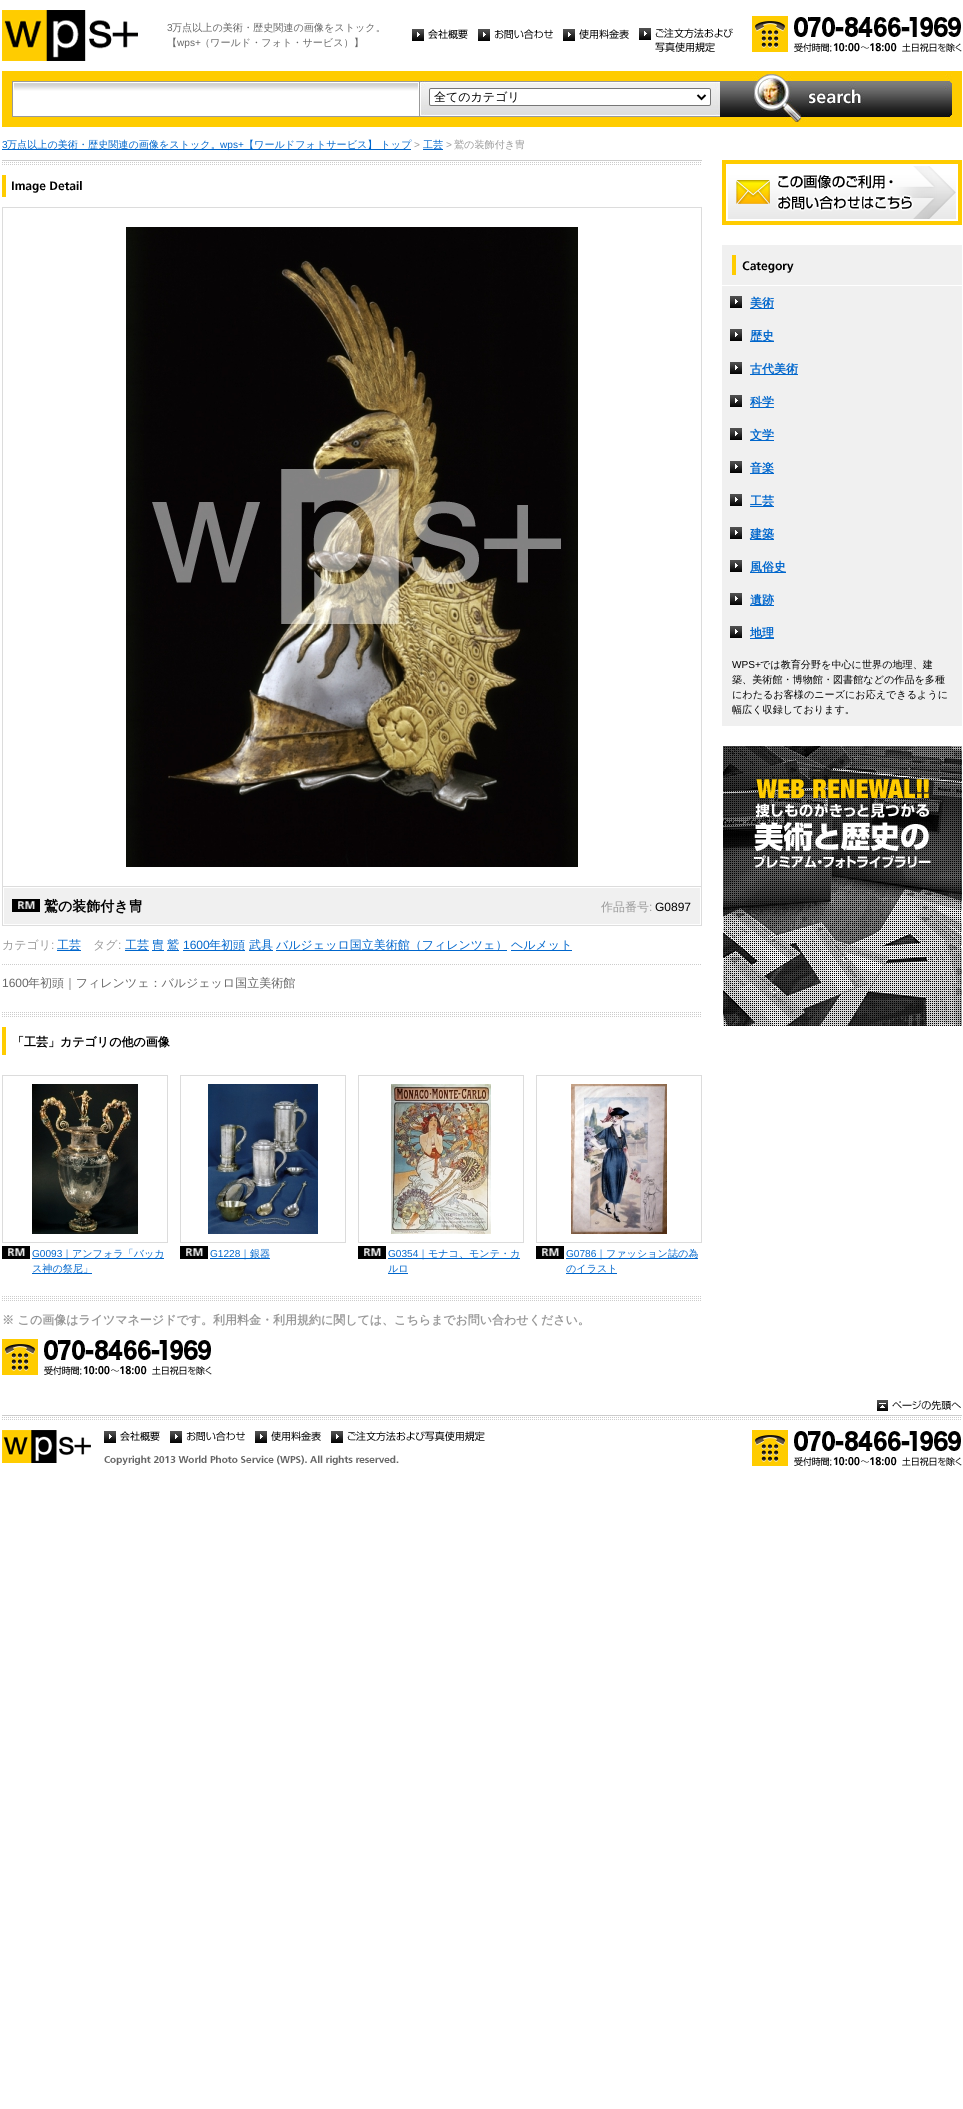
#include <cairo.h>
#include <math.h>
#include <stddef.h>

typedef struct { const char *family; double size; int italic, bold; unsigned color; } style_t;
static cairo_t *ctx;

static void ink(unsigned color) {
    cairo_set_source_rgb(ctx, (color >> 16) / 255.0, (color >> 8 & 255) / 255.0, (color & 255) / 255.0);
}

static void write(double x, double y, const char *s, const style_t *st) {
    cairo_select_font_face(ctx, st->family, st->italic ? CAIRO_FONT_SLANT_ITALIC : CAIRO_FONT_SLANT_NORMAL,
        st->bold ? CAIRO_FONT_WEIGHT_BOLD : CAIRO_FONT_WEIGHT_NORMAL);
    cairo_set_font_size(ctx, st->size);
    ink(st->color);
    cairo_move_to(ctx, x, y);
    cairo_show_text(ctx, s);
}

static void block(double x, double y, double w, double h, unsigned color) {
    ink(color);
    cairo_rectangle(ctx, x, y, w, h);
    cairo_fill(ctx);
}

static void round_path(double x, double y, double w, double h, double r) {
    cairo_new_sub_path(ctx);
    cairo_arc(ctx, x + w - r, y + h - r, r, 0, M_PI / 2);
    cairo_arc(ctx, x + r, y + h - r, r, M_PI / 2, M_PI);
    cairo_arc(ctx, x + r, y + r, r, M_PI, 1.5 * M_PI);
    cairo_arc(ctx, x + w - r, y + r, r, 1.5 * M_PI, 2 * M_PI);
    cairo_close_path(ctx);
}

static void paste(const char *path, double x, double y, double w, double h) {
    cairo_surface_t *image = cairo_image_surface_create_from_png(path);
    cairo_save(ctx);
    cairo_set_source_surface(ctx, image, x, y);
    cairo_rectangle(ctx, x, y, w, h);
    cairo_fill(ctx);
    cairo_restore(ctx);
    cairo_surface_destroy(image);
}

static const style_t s1 = {"Liberation Sans", 10.1, 0, 0, 0x666666};
static const style_t s2 = {"WenQuanYi Zen Hei Medium", 10.1, 0, 0, 0x666666};
static const style_t s3 = {"WenQuanYi Zen Hei Medium", 12, 0, 0, 0x000000};
static const style_t s4 = {"Liberation Sans", 10.1, 0, 0, 0x0066cc};
static const style_t s5 = {"WenQuanYi Zen Hei Medium", 10.1, 0, 0, 0x0066cc};
static const style_t s6 = {"Liberation Sans", 10.1, 0, 0, 0x999999};
static const style_t s7 = {"WenQuanYi Zen Hei Medium", 10.1, 0, 0, 0x999999};
static const style_t s8 = {"WenQuanYi Zen Hei", 12, 0, 1, 0x0066cc};
static const style_t s9 = {"Liberation Sans", 10.1, 0, 0, 0x000000};
static const style_t s10 = {"WenQuanYi Zen Hei Medium", 10.1, 0, 0, 0x000000};
static const style_t s11 = {"WenQuanYi Zen Hei", 14, 0, 1, 0x000000};
static const style_t s12 = {"WenQuanYi Zen Hei Medium", 12, 0, 0, 0x999999};
static const style_t s13 = {"Liberation Sans", 12, 0, 0, 0x999999};
static const style_t s14 = {"Liberation Sans", 12, 0, 0, 0x000000};
static const style_t s15 = {"WenQuanYi Zen Hei Medium", 12, 0, 0, 0x0066cc};
static const style_t s16 = {"Liberation Sans", 12, 0, 0, 0x0066cc};
static const style_t s17 = {"Liberation Sans", 12, 0, 0, 0x666666};
static const style_t s18 = {"WenQuanYi Zen Hei Medium", 12, 0, 0, 0x666666};
static const style_t s19 = {"WenQuanYi Zen Hei", 12, 0, 1, 0x000000};
static const style_t s20 = {"WenQuanYi Zen Hei", 12, 0, 1, 0x999999};

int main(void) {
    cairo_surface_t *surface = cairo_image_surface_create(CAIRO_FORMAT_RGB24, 963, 2109);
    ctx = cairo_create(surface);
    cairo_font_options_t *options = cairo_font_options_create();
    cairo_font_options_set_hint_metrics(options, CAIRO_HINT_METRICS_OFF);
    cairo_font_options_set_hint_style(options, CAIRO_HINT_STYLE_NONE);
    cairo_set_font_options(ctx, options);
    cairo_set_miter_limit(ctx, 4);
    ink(0xffffff);
    cairo_paint(ctx);
    paste("pic1.png", 2, 10, 136, 51);
    write(167, 31, "3", &s1);
    write(172, 31, "万点以上の美術・歴史関連の画像をストック。", &s2);
    write(167, 46, "【", &s2);
    write(177, 46, "wps+", &s1);
    write(200, 46, "（ワールド・フォト・サービス）】", &s2);
    paste("pic2.png", 412, 29, 56, 12);
    paste("pic3.png", 478, 29, 75, 12);
    paste("pic4.png", 563, 29, 66, 12);
    paste("pic5.png", 639, 28, 94, 24);
    paste("pic6.png", 752, 16, 210, 36);
    block(2, 71, 960, 56, 0xffcc00);
    paste("pic7.png", 12, 81, 407, 36);
    paste("pic8.png", 419, 81, 301, 36);
    ink(0xffffff);
    round_path(429.5, 88.5, 281, 17, 1.5);
    cairo_fill_preserve(ctx);
    ink(0x767676);
    cairo_set_line_width(ctx, 1);
    cairo_stroke(ctx);
    cairo_new_path(ctx);
    cairo_move_to(ctx, 697.5, 95);
    cairo_line_to(ctx, 701.5, 99);
    cairo_line_to(ctx, 705.5, 95);
    ink(0x000000);
    cairo_set_line_width(ctx, 2);
    cairo_stroke(ctx);
    write(434, 101, "全てのカテゴリ", &s3);
    paste("pic9.png", 720, 74, 232, 48);
    write(2, 148, "3", &s4);
    block(2, 149, 409, 1, 0x0066cc);
    write(7, 148, "万点以上の美術・歴史関連の画像をストック。", &s5);
    write(220, 148, "wps+", &s4);
    write(244, 148, "【ワールドフォトサービス】 トップ", &s5);
    write(414, 148, ">", &s6);
    block(423, 149, 20, 1, 0x0066cc);
    write(423, 148, "工芸", &s5);
    write(446, 148, ">", &s6);
    write(454, 148, "鷲の装飾付き冑", &s7);
    paste("pic10.png", 722, 160, 240, 65);
    paste("pic11.png", 722, 245, 240, 40);
    block(722, 286, 240, 440, 0xf0f0f0);
    paste("pic12.png", 730, 296, 12, 12);
    block(750, 308, 24, 1, 0x0066cc);
    write(750, 307, "美術", &s8);
    paste("pic12.png", 730, 329, 12, 12);
    block(750, 341, 24, 1, 0x0066cc);
    write(750, 340, "歴史", &s8);
    paste("pic12.png", 730, 362, 12, 12);
    block(750, 374, 48, 1, 0x0066cc);
    write(750, 373, "古代美術", &s8);
    paste("pic12.png", 730, 395, 12, 12);
    block(750, 407, 24, 1, 0x0066cc);
    write(750, 406, "科学", &s8);
    paste("pic12.png", 730, 428, 12, 12);
    block(750, 440, 24, 1, 0x0066cc);
    write(750, 439, "文学", &s8);
    paste("pic12.png", 730, 461, 12, 12);
    block(750, 473, 24, 1, 0x0066cc);
    write(750, 472, "音楽", &s8);
    paste("pic12.png", 730, 494, 12, 12);
    block(750, 506, 24, 1, 0x0066cc);
    write(750, 505, "工芸", &s8);
    paste("pic12.png", 730, 527, 12, 12);
    block(750, 539, 24, 1, 0x0066cc);
    write(750, 538, "建築", &s8);
    paste("pic12.png", 730, 560, 12, 12);
    block(750, 572, 36, 1, 0x0066cc);
    write(750, 571, "風俗史", &s8);
    paste("pic12.png", 730, 593, 12, 12);
    block(750, 605, 24, 1, 0x0066cc);
    write(750, 604, "遺跡", &s8);
    paste("pic12.png", 730, 626, 12, 12);
    block(750, 638, 24, 1, 0x0066cc);
    write(750, 637, "地理", &s8);
    write(732, 668, "WPS+", &s9);
    write(760, 668, "では教育分野を中心に世界の地理、建", &s10);
    write(732, 683, "築、美術館・博物館・図書館などの作品を多種", &s10);
    write(732, 698, "にわたるお客様のニーズにお応えできるように", &s10);
    write(732, 713, "幅広く収録しております。", &s10);
    paste("pic13.png", 723, 746, 239, 280);
    paste("pic14.png", 2, 160, 700, 5);
    block(2, 175, 4, 22, 0xffcc00);
    paste("pic15.png", 12, 181, 70, 12);
    block(2, 207, 700, 1, 0xdcdcdc);
    block(701, 207, 1, 680, 0xdcdcdc);
    block(2, 207, 1, 680, 0xdcdcdc);
    paste("pic16.png", 126, 227, 452, 640);
    paste("pic17.png", 2, 886, 700, 40);
    paste("pic18.png", 3, 886, 698, 2);
    paste("pic19.png", 12, 899, 28, 13);
    write(44, 911, "鷲の装飾付き冑", &s11);
    write(601, 911, "作品番号", &s12);
    write(649, 911, ":", &s13);
    write(655, 911, "G0897", &s14);
    write(2, 949, "カテゴリ", &s12);
    write(51, 949, ":", &s13);
    block(57, 950, 24, 1, 0x0066cc);
    write(57, 949, "工芸", &s15);
    write(93, 949, "タグ", &s12);
    write(118, 949, ":", &s13);
    block(125, 950, 24, 1, 0x0066cc);
    write(125, 949, "工芸", &s15);
    block(152, 950, 12, 1, 0x0066cc);
    write(152, 949, "冑", &s15);
    block(167, 950, 12, 1, 0x0066cc);
    write(167, 949, "鷲", &s15);
    write(183, 949, "1600", &s16);
    block(183, 950, 62, 1, 0x0066cc);
    write(209, 949, "年初頭", &s15);
    block(249, 950, 24, 1, 0x0066cc);
    write(249, 949, "武具", &s15);
    block(276, 950, 231, 1, 0x0066cc);
    write(276, 949, "バルジェッロ国立美術館（フィレンツェ）", &s15);
    block(511, 950, 61, 1, 0x0066cc);
    write(511, 949, "ヘルメット", &s15);
    paste("pic20.png", 2, 964, 699, 1);
    write(2, 987, "1600", &s17);
    write(28, 987, "年初頭｜フィレンツェ：バルジェッロ国立美術館", &s18);
    paste("pic21.png", 2, 1012, 699, 5);
    block(2, 1027, 4, 28, 0xffcc00);
    write(12, 1046, "「工芸」カテゴリの他の画像", &s19);
    block(2, 1075, 166, 1, 0xdcdcdc);
    block(167, 1075, 1, 168, 0xdcdcdc);
    block(2, 1242, 166, 1, 0xdcdcdc);
    block(2, 1075, 1, 168, 0xdcdcdc);
    paste("pic22.png", 32, 1084, 106, 150);
    paste("pic19.png", 2, 1246, 28, 13);
    write(32, 1257, "G0093", &s4);
    block(32, 1258, 132, 1, 0x0066cc);
    write(62, 1257, "｜アンフォラ「バッカ", &s5);
    block(32, 1273, 60, 1, 0x0066cc);
    write(32, 1272, "ス神の祭尼」", &s5);
    block(180, 1075, 166, 1, 0xdcdcdc);
    block(345, 1075, 1, 168, 0xdcdcdc);
    block(180, 1242, 166, 1, 0xdcdcdc);
    block(180, 1075, 1, 168, 0xdcdcdc);
    paste("pic23.png", 208, 1084, 110, 150);
    paste("pic19.png", 180, 1246, 28, 13);
    write(210, 1257, "G1228", &s4);
    block(210, 1258, 60, 1, 0x0066cc);
    write(240, 1257, "｜銀器", &s5);
    block(358, 1075, 166, 1, 0xdcdcdc);
    block(523, 1075, 1, 168, 0xdcdcdc);
    block(358, 1242, 166, 1, 0xdcdcdc);
    block(358, 1075, 1, 168, 0xdcdcdc);
    paste("pic24.png", 391, 1084, 100, 150);
    paste("pic19.png", 358, 1246, 28, 13);
    write(388, 1257, "G0354", &s4);
    block(388, 1258, 132, 1, 0x0066cc);
    write(418, 1257, "｜モナコ、モンテ・カ", &s5);
    write(388, 1272, "ルロ", &s5);
    block(388, 1273, 20, 1, 0x0066cc);
    block(536, 1075, 166, 1, 0xdcdcdc);
    block(701, 1075, 1, 168, 0xdcdcdc);
    block(536, 1242, 166, 1, 0xdcdcdc);
    block(536, 1075, 1, 168, 0xdcdcdc);
    paste("pic25.png", 571, 1084, 96, 150);
    paste("pic19.png", 536, 1246, 28, 13);
    write(566, 1257, "G0786", &s4);
    block(566, 1258, 132, 1, 0x0066cc);
    write(596, 1257, "｜ファッション誌の為", &s5);
    block(566, 1273, 51, 1, 0x0066cc);
    write(566, 1272, "のイラスト", &s5);
    paste("pic21.png", 2, 1296, 699, 5);
    write(2, 1324, "※ この画像はライツマネージドです。利用料金・利用規約に関しては、こちらまでお問い合わせください。", &s20);
    paste("pic6.png", 2, 1339, 210, 36);
    paste("pic26.png", 2, 1415, 960, 5);
    paste("pic27.png", 877, 1400, 84, 11);
    paste("pic28.png", 2, 1430, 89, 33);
    paste("pic2.png", 104, 1431, 56, 12);
    paste("pic3.png", 170, 1431, 75, 12);
    paste("pic4.png", 255, 1431, 66, 12);
    paste("pic29.png", 331, 1431, 154, 12);
    paste("pic6.png", 752, 1430, 210, 36);
    paste("pic30.png", 104, 1455, 295, 10);
    cairo_surface_write_to_png(surface, "screenshot.png");
    cairo_font_options_destroy(options);
    cairo_destroy(ctx);
    cairo_surface_destroy(surface);
    return 0;
}
